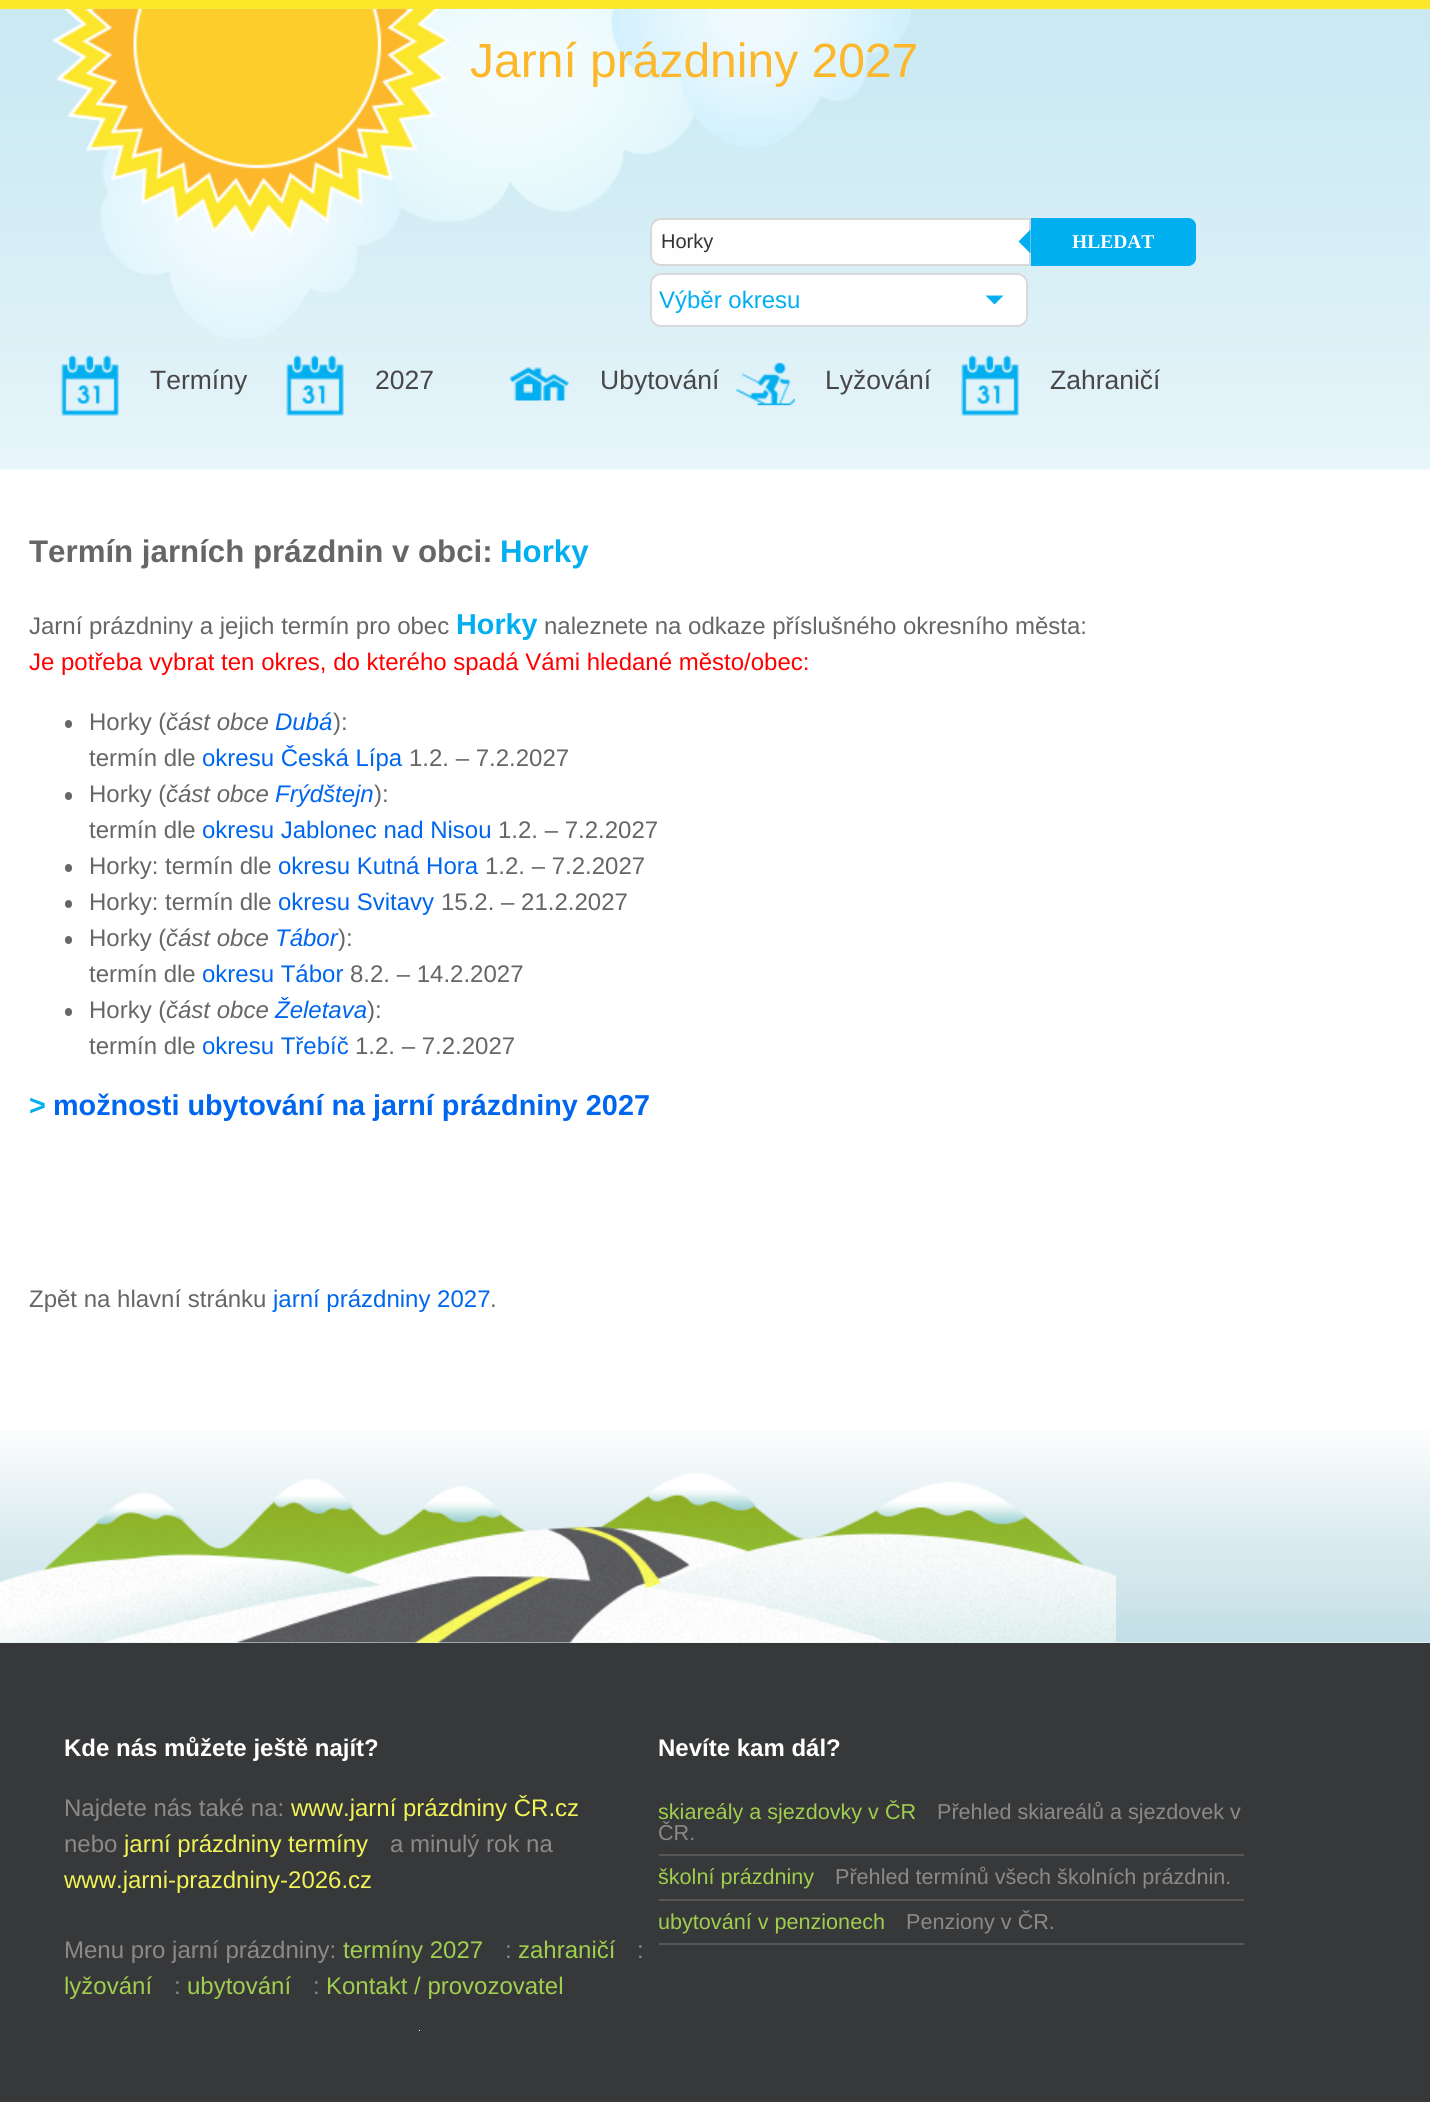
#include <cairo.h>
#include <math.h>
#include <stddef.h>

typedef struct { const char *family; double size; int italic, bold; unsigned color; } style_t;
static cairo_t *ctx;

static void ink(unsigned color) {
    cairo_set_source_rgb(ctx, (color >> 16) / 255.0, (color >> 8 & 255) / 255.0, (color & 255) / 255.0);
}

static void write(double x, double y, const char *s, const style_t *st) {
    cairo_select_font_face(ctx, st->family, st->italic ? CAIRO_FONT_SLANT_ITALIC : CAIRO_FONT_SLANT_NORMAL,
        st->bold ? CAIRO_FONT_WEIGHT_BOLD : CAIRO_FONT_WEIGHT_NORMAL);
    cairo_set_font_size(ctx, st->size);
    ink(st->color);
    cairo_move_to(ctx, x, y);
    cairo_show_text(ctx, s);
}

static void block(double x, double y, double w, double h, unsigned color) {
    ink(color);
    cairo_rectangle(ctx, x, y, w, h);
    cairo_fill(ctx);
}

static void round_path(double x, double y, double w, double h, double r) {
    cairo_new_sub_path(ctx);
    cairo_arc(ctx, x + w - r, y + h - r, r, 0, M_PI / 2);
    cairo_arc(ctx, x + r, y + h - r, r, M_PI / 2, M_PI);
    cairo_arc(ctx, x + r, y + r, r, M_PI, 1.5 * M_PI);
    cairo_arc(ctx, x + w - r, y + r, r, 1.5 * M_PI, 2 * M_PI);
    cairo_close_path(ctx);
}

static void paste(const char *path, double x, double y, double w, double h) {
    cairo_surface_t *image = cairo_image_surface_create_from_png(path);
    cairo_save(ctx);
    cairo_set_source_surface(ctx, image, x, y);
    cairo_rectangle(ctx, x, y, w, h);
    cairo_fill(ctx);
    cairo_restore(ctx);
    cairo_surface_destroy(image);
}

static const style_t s1 = {"Liberation Sans", 48, 0, 0, 0xfcb72b};
static const style_t s2 = {"Liberation Sans", 20, 0, 0, 0x333333};
static const style_t s3 = {"Liberation Serif", 19.5, 0, 1, 0xffffff};
static const style_t s4 = {"Liberation Sans", 24, 0, 0, 0x01aef0};
static const style_t s5 = {"Liberation Sans", 26.5, 0, 0, 0x474747};
static const style_t s6 = {"Liberation Sans", 31.25, 0, 1, 0x666666};
static const style_t s7 = {"Liberation Sans", 31.25, 0, 1, 0x01aef0};
static const style_t s8 = {"Liberation Sans", 24, 0, 0, 0x666666};
static const style_t s9 = {"Liberation Sans", 28.8, 0, 1, 0x01aef0};
static const style_t s10 = {"Liberation Sans", 24, 0, 0, 0xff0000};
static const style_t s11 = {"Liberation Sans", 24, 1, 0, 0x666666};
static const style_t s12 = {"Liberation Sans", 24, 1, 0, 0x0066ee};
static const style_t s13 = {"Liberation Sans", 24, 0, 0, 0x0066ee};
static const style_t s14 = {"Liberation Sans", 28.8, 0, 1, 0x0066ee};
static const style_t s15 = {"Liberation Sans", 24, 0, 1, 0xffffff};
static const style_t s16 = {"Liberation Sans", 24, 0, 0, 0x8c8989};
static const style_t s17 = {"Liberation Sans", 24, 0, 0, 0xf2f357};
static const style_t s18 = {"Liberation Sans", 24, 0, 0, 0xa0ce4e};
static const style_t s19 = {"Liberation Sans", 21.6, 0, 0, 0xa0ce4e};
static const style_t s20 = {"Liberation Sans", 21.6, 0, 0, 0x8c8989};

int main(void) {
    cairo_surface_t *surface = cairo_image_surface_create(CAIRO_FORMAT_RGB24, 1430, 2113);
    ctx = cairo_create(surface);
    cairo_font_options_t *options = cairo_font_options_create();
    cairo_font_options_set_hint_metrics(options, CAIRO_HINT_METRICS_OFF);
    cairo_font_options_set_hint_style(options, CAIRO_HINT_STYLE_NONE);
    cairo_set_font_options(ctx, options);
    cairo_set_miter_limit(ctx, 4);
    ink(0xffffff);
    cairo_paint(ctx);
    paste("pic1.png", 0, 0, 1430, 470);
    paste("pic2.png", 52, 9, 859, 330);
    write(470, 77, "Jarní prázdniny 2027", &s1);
    ink(0xfefefe);
    cairo_new_path(ctx);
    cairo_move_to(ctx, 661, 218);
    cairo_line_to(ctx, 1031, 218);
    cairo_line_to(ctx, 1031, 266);
    cairo_line_to(ctx, 661, 266);
    cairo_curve_to(ctx, 655, 266, 650, 261, 650, 255);
    cairo_line_to(ctx, 650, 229);
    cairo_curve_to(ctx, 650, 223, 655, 218, 661, 218);
    cairo_close_path(ctx);
    cairo_fill(ctx);
    cairo_new_path(ctx);
    cairo_move_to(ctx, 661, 219);
    cairo_line_to(ctx, 1030, 219);
    cairo_line_to(ctx, 1030, 265);
    cairo_line_to(ctx, 661, 265);
    cairo_curve_to(ctx, 655.5, 265, 651, 260.5, 651, 255);
    cairo_line_to(ctx, 651, 229);
    cairo_curve_to(ctx, 651, 223.5, 655.5, 219, 661, 219);
    cairo_close_path(ctx);
    cairo_set_source_rgba(ctx, 0, 0, 0, 0.15);
    cairo_stroke(ctx);
    write(661, 248, "Horky", &s2);
    ink(0x01aef0);
    cairo_new_path(ctx);
    cairo_move_to(ctx, 1031, 218);
    cairo_line_to(ctx, 1188, 218);
    cairo_curve_to(ctx, 1192.5, 218, 1196, 221.5, 1196, 226);
    cairo_line_to(ctx, 1196, 258);
    cairo_curve_to(ctx, 1196, 262.5, 1192.5, 266, 1188, 266);
    cairo_line_to(ctx, 1031, 266);
    cairo_close_path(ctx);
    cairo_fill(ctx);
    cairo_new_path(ctx);
    cairo_move_to(ctx, 1030.5, 229.5);
    cairo_line_to(ctx, 1030.5, 253.5);
    cairo_line_to(ctx, 1018.5, 241.5);
    cairo_close_path(ctx);
    cairo_fill(ctx);
    write(1072, 248, "HLEDAT", &s3);
    round_path(650, 273, 378, 54, 11);
    cairo_fill(ctx);
    round_path(651, 274, 376, 52, 10);
    cairo_set_source_rgba(ctx, 0, 0, 0, 0.15);
    cairo_stroke(ctx);
    write(659, 308, "Výběr okresu", &s4);
    cairo_new_path(ctx);
    cairo_move_to(ctx, 985.5, 295.5);
    cairo_line_to(ctx, 1003.5, 295.5);
    cairo_line_to(ctx, 994.5, 304.5);
    cairo_close_path(ctx);
    cairo_fill(ctx);
    paste("pic3.png", 61, 355, 58, 61);
    write(150, 389, "Termíny", &s5);
    paste("pic3.png", 286, 355, 58, 61);
    write(375, 389, "2027", &s5);
    paste("pic4.png", 510, 367, 59, 34);
    write(600, 389, "Ubytování", &s5);
    paste("pic5.png", 736, 362, 59, 44);
    write(825, 389, "Lyžování", &s5);
    paste("pic3.png", 961, 355, 58, 61);
    write(1050, 389, "Zahraničí", &s5);
    paste("pic6.png", 0, 1430, 1430, 213);
    paste("pic7.png", 0, 1473, 1116, 170);
    write(29, 562, "Termín jarních prázdnin v obci:", &s6);
    write(500, 562, "Horky", &s7);
    write(29, 634, "Jarní prázdniny a jejich termín pro obec", &s8);
    write(456, 634, "Horky", &s9);
    write(544, 634, "naleznete na odkaze příslušného okresního města:", &s8);
    write(29, 670, "Je potřeba vybrat ten okres, do kterého spadá Vámi hledané město/obec:", &s10);
    ink(0x666666);
    round_path(65, 720, 7, 8, 3.5);
    cairo_fill(ctx);
    write(89, 730, "Horky (", &s8);
    write(166, 730, "část obce", &s11);
    write(275, 730, "Dubá", &s12);
    write(333, 730, "):", &s8);
    write(89, 766, "termín dle", &s8);
    write(202, 766, "okresu Česká Lípa", &s13);
    write(409, 766, "1.2. – 7.2.2027", &s8);
    round_path(65, 792, 7, 8, 3.5);
    cairo_fill(ctx);
    write(89, 802, "Horky (", &s8);
    write(166, 802, "část obce", &s11);
    write(275, 802, "Frýdštejn", &s12);
    write(374, 802, "):", &s8);
    write(89, 838, "termín dle", &s8);
    write(202, 838, "okresu Jablonec nad Nisou", &s13);
    write(498, 838, "1.2. – 7.2.2027", &s8);
    round_path(65, 864, 7, 8, 3.5);
    cairo_fill(ctx);
    write(89, 874, "Horky: termín dle", &s8);
    write(278, 874, "okresu Kutná Hora", &s13);
    write(485, 874, "1.2. – 7.2.2027", &s8);
    round_path(65, 900, 7, 8, 3.5);
    cairo_fill(ctx);
    write(89, 910, "Horky: termín dle", &s8);
    write(278, 910, "okresu Svitavy", &s13);
    write(441, 910, "15.2. – 21.2.2027", &s8);
    round_path(65, 936, 7, 8, 3.5);
    cairo_fill(ctx);
    write(89, 946, "Horky (", &s8);
    write(166, 946, "část obce", &s11);
    write(275, 946, "Tábor", &s12);
    write(338, 946, "):", &s8);
    write(89, 982, "termín dle", &s8);
    write(202, 982, "okresu Tábor", &s13);
    write(350, 982, "8.2. – 14.2.2027", &s8);
    round_path(65, 1008, 7, 8, 3.5);
    cairo_fill(ctx);
    write(89, 1018, "Horky (", &s8);
    write(166, 1018, "část obce", &s11);
    write(275, 1018, "Želetava", &s12);
    write(367, 1018, "):", &s8);
    write(89, 1054, "termín dle", &s8);
    write(202, 1054, "okresu Třebíč", &s13);
    write(355, 1054, "1.2. – 7.2.2027", &s8);
    write(29, 1115, ">", &s9);
    write(53, 1115, "možnosti ubytování na jarní prázdniny 2027", &s14);
    write(29, 1307, "Zpět na hlavní stránku", &s8);
    write(273, 1307, "jarní prázdniny 2027", &s13);
    write(490, 1307, ".", &s8);
    block(0, 1643, 1430, 459, 0x363839);
    write(64, 1756, "Kde nás můžete ještě najít?", &s15);
    write(64, 1816, "Najdete nás také na:", &s16);
    write(291, 1816, "www.jarní prázdniny ČR.cz", &s17);
    write(64, 1852, "nebo", &s16);
    write(124, 1852, "jarní prázdniny termíny", &s17);
    write(390, 1852, "a minulý rok na", &s16);
    write(64, 1888, "www.jarni-prazdniny-2026.cz", &s17);
    write(64, 1958, "Menu pro jarní prázdniny:", &s16);
    write(343, 1958, "termíny 2027", &s18);
    write(505, 1958, ":", &s16);
    write(518, 1958, "zahraničí", &s18);
    write(637, 1958, ":", &s16);
    write(64, 1994, "lyžování", &s18);
    write(174, 1994, ":", &s16);
    write(187, 1994, "ubytování", &s18);
    write(313, 1994, ":", &s16);
    write(326, 1994, "Kontakt / provozovatel", &s18);
    block(419, 2030, 1, 1, 0xffffff);
    write(658, 1756, "Nevíte kam dál?", &s15);
    block(659, 1854, 585, 2, 0x575757);
    write(658, 1819, "skiareály a sjezdovky v ČR", &s19);
    write(937, 1819, "Přehled skiareálů a sjezdovek v", &s20);
    write(658, 1840, "ČR.", &s20);
    block(659, 1899, 585, 2, 0x575757);
    write(658, 1884, "školní prázdniny", &s19);
    write(835, 1884, "Přehled termínů všech školních prázdnin.", &s20);
    block(659, 1943, 585, 2, 0x575757);
    write(658, 1929, "ubytování v penzionech", &s19);
    write(906, 1929, "Penziony v ČR.", &s20);
    cairo_surface_write_to_png(surface, "screenshot.png");
    cairo_font_options_destroy(options);
    cairo_destroy(ctx);
    cairo_surface_destroy(surface);
    return 0;
}
